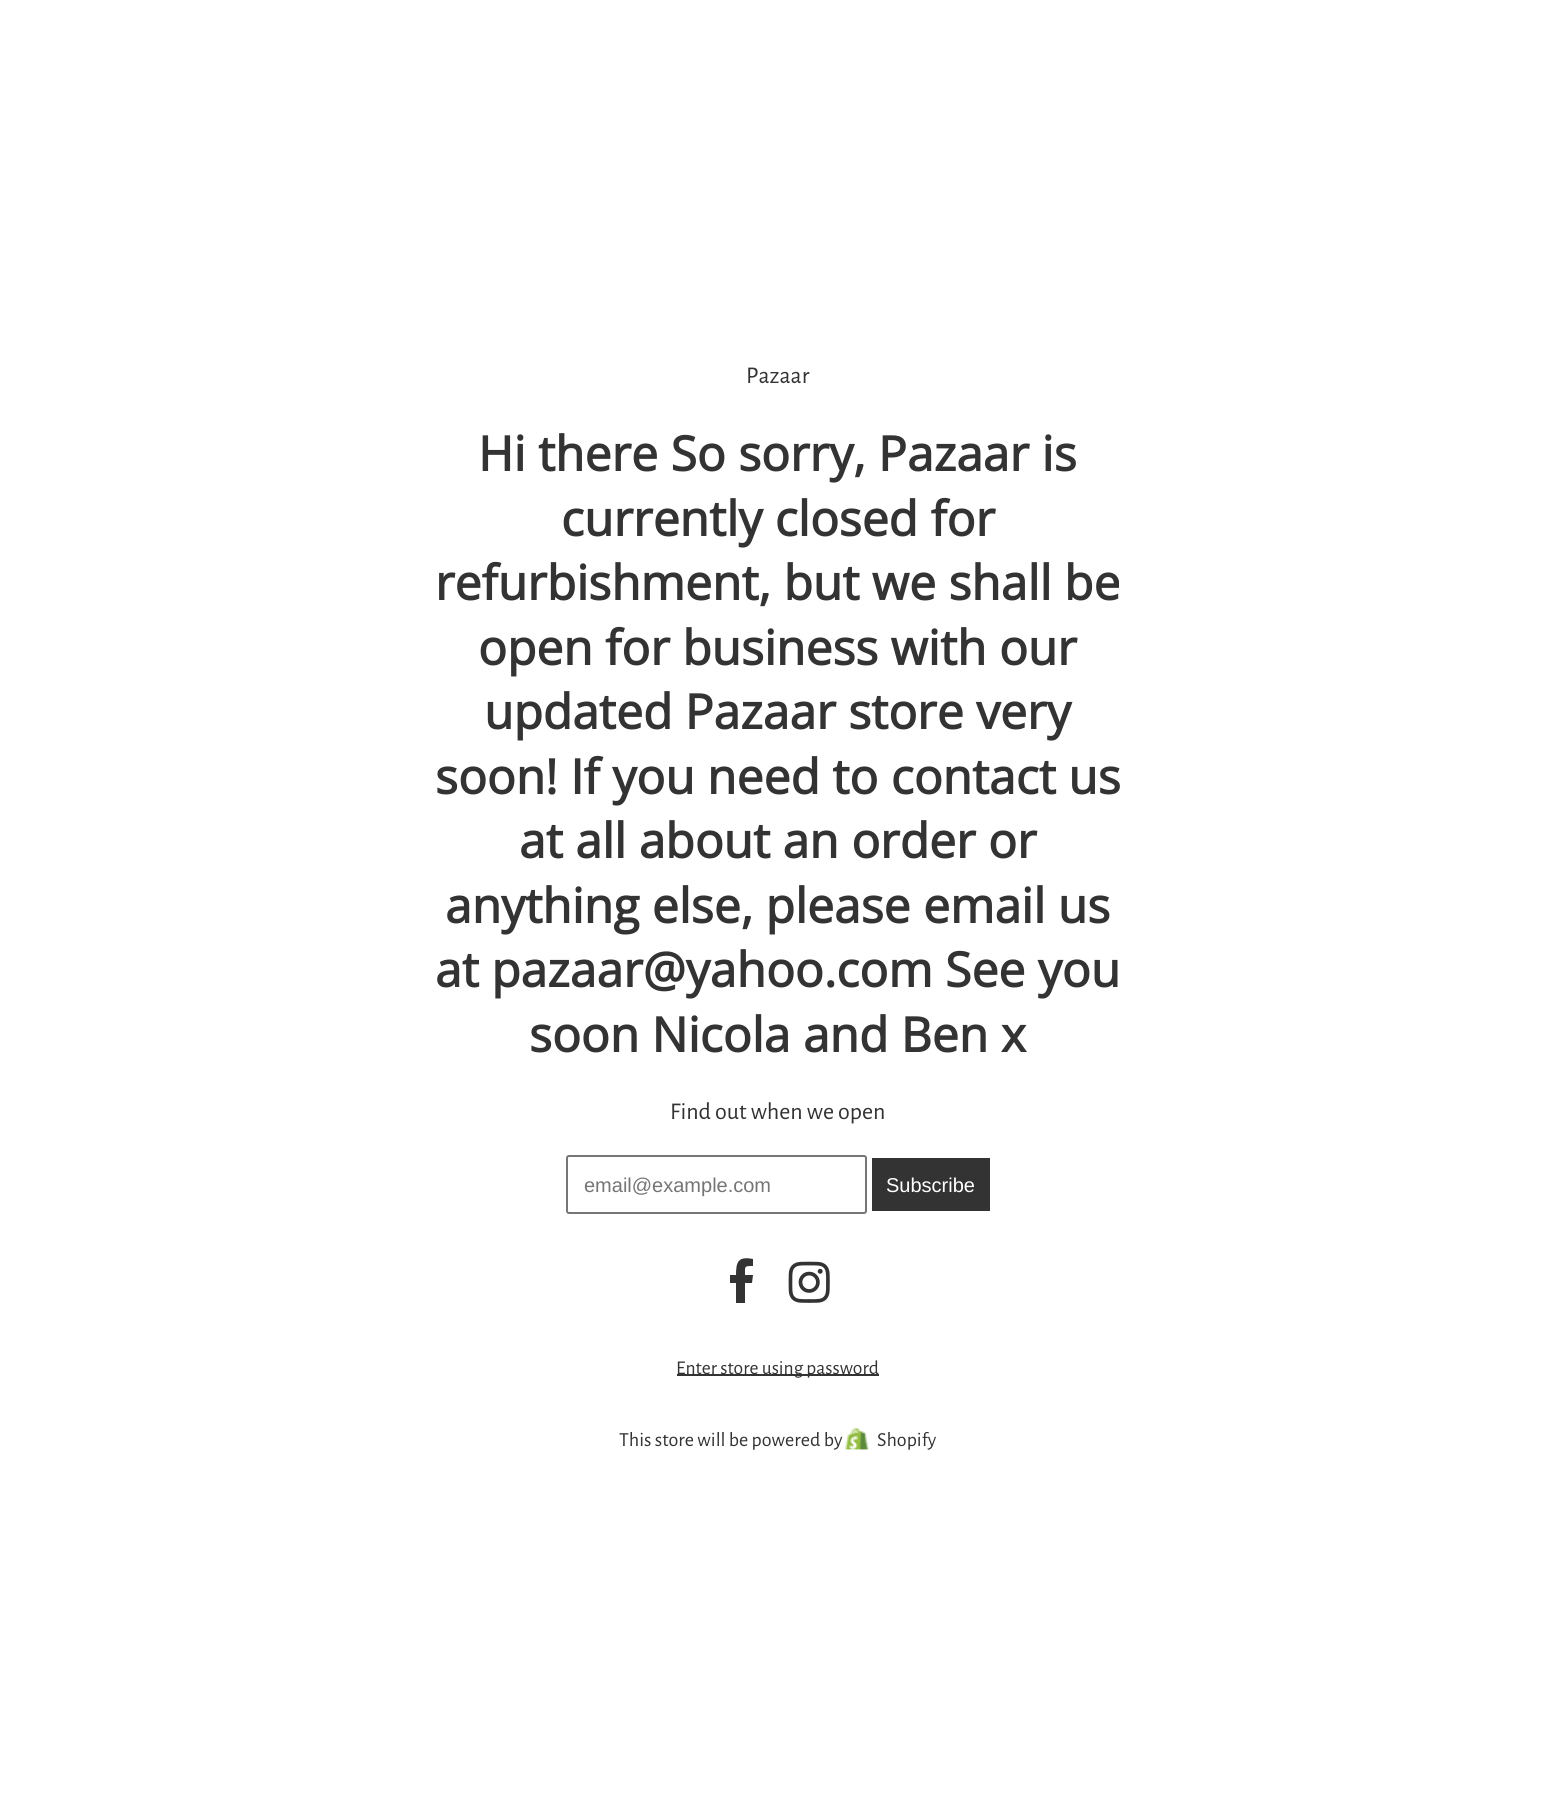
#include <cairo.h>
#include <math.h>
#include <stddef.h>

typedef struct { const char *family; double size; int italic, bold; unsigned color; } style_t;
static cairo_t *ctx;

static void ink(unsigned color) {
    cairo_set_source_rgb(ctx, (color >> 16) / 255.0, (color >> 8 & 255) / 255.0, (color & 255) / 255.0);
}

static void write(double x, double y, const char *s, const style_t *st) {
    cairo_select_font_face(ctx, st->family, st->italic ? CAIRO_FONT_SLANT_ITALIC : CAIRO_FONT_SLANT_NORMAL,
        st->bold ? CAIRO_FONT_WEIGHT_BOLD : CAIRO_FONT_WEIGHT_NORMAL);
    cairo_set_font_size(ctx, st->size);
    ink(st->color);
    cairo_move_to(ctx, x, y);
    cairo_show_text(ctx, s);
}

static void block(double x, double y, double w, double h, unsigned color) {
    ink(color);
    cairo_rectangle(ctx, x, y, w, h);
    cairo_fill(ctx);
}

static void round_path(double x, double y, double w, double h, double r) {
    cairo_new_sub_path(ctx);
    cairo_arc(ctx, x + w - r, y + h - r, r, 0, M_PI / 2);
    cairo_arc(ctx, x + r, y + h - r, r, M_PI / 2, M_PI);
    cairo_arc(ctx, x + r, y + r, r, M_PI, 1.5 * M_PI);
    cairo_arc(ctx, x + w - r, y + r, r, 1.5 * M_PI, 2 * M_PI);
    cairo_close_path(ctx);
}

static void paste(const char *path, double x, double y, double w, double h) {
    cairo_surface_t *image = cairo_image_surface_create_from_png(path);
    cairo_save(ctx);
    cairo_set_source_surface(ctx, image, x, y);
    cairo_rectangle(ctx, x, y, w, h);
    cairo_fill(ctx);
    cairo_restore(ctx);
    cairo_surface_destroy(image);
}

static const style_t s1 = {"Alegreya Sans", 24, 0, 0, 0x333333};
static const style_t s2 = {"Open Sans", 48, 0, 1, 0x333333};
static const style_t s3 = {"Liberation Sans", 20, 0, 0, 0x757575};
static const style_t s4 = {"Liberation Sans", 20, 0, 0, 0xffffff};
static const style_t s5 = {"Alegreya Sans", 19.5, 0, 0, 0x333333};
static const style_t s6 = {"Alegreya Sans", 20, 0, 0, 0x333333};

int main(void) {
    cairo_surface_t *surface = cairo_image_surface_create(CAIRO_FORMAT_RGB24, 1555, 1815);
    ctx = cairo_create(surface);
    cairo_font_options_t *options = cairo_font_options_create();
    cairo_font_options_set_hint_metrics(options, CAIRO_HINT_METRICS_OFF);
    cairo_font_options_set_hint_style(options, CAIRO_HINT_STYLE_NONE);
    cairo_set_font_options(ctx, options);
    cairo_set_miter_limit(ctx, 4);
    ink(0xffffff);
    cairo_paint(ctx);
    write(746, 383, "Pazaar", &s1);
    write(478, 471, "Hi there So sorry, Pazaar is", &s2);
    write(561, 536, "currently closed for", &s2);
    write(435, 600, "refurbishment, but we shall be", &s2);
    write(478, 665, "open for business with our", &s2);
    write(484, 729, "updated Pazaar store very", &s2);
    write(435, 794, "soon! If you need to contact us", &s2);
    write(519, 858, "at all about an order or", &s2);
    write(445, 923, "anything else, please email us", &s2);
    write(435, 987, "at pazaar@yahoo.com See you", &s2);
    write(529, 1052, "soon Nicola and Ben x", &s2);
    write(670, 1119, "Find out when we open", &s1);
    round_path(567, 1156, 299, 57, 2);
    ink(0x767676);
    cairo_stroke(ctx);
    write(584, 1192, "email@example.com", &s3);
    block(872, 1158, 118, 53, 0x333333);
    write(886, 1192, "Subscribe", &s4);
    ink(0x333333);
    cairo_new_path(ctx);
    cairo_move_to(ctx, 753, 1259);
    cairo_line_to(ctx, 753, 1266);
    cairo_curve_to(ctx, 744, 1266, 745, 1266, 745, 1275);
    cairo_line_to(ctx, 753, 1275);
    cairo_line_to(ctx, 752, 1283);
    cairo_line_to(ctx, 745, 1283);
    cairo_line_to(ctx, 745, 1303);
    cairo_line_to(ctx, 736, 1303);
    cairo_line_to(ctx, 736, 1283);
    cairo_line_to(ctx, 730, 1283);
    cairo_line_to(ctx, 730, 1275);
    cairo_line_to(ctx, 736, 1275);
    cairo_curve_to(ctx, 736, 1262, 738, 1256, 753, 1259);
    cairo_close_path(ctx);
    cairo_fill(ctx);
    paste("pic1.png", 788, 1261, 42, 42);
    block(677, 1374, 202, 2, 0x333333);
    write(676, 1374, "Enter store using password", &s5);
    write(619, 1446, "This store will be powered by", &s6);
    paste("pic2.png", 845, 1428, 24, 22);
    write(877, 1446, "Shopify", &s6);
    cairo_surface_write_to_png(surface, "screenshot.png");
    cairo_font_options_destroy(options);
    cairo_destroy(ctx);
    cairo_surface_destroy(surface);
    return 0;
}
